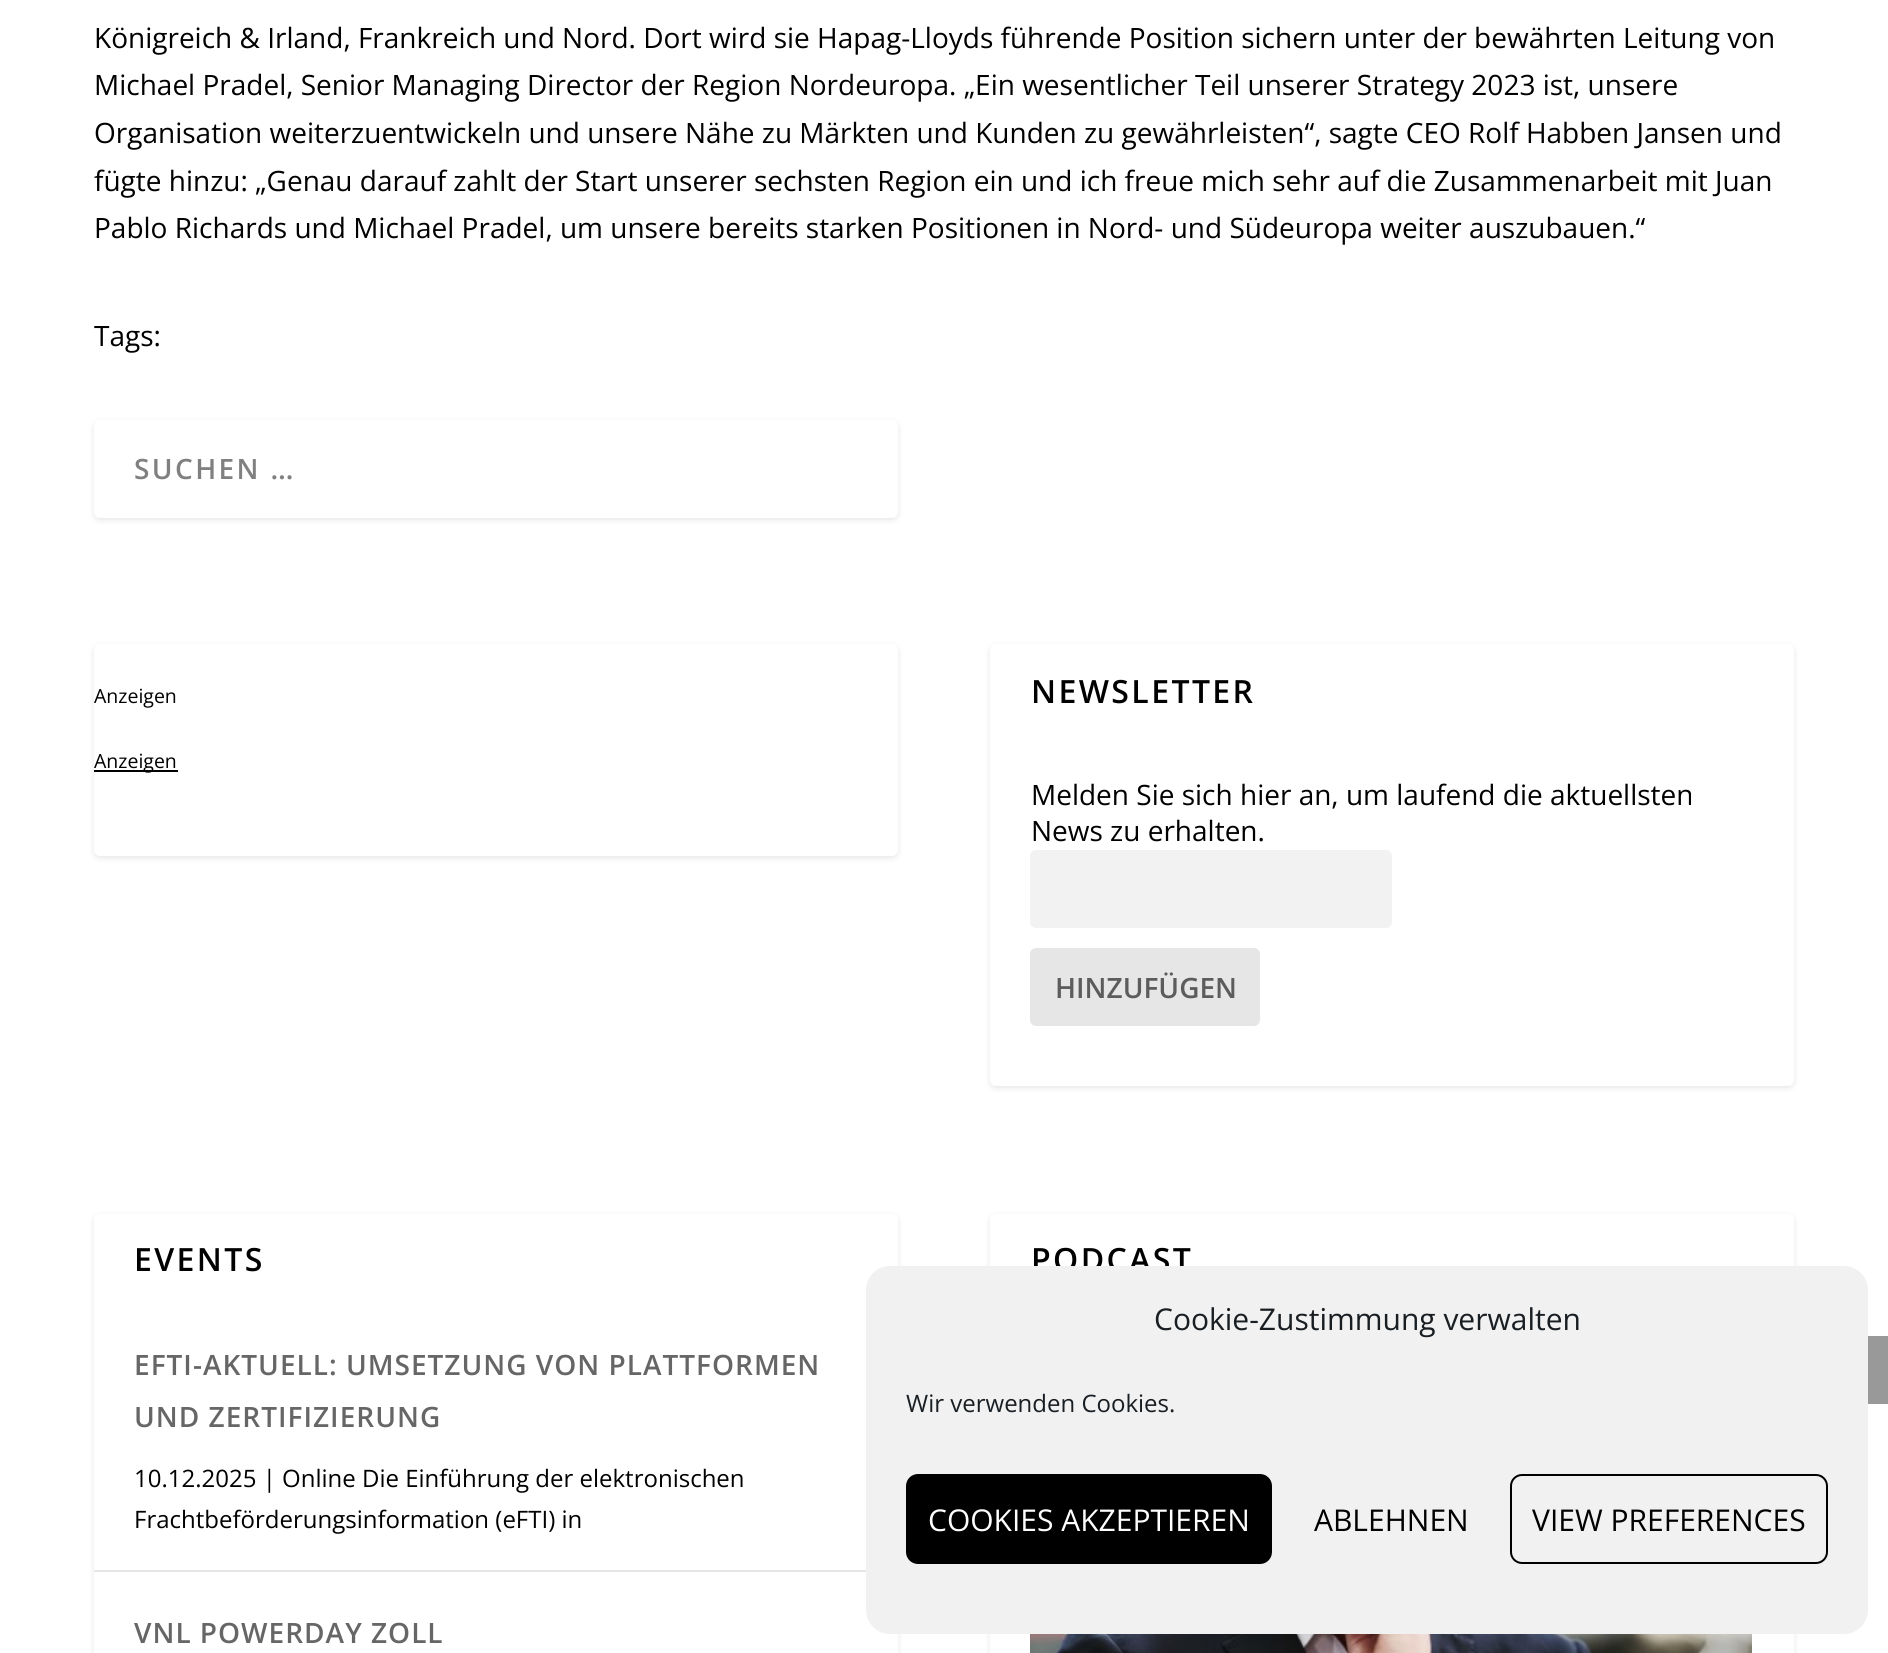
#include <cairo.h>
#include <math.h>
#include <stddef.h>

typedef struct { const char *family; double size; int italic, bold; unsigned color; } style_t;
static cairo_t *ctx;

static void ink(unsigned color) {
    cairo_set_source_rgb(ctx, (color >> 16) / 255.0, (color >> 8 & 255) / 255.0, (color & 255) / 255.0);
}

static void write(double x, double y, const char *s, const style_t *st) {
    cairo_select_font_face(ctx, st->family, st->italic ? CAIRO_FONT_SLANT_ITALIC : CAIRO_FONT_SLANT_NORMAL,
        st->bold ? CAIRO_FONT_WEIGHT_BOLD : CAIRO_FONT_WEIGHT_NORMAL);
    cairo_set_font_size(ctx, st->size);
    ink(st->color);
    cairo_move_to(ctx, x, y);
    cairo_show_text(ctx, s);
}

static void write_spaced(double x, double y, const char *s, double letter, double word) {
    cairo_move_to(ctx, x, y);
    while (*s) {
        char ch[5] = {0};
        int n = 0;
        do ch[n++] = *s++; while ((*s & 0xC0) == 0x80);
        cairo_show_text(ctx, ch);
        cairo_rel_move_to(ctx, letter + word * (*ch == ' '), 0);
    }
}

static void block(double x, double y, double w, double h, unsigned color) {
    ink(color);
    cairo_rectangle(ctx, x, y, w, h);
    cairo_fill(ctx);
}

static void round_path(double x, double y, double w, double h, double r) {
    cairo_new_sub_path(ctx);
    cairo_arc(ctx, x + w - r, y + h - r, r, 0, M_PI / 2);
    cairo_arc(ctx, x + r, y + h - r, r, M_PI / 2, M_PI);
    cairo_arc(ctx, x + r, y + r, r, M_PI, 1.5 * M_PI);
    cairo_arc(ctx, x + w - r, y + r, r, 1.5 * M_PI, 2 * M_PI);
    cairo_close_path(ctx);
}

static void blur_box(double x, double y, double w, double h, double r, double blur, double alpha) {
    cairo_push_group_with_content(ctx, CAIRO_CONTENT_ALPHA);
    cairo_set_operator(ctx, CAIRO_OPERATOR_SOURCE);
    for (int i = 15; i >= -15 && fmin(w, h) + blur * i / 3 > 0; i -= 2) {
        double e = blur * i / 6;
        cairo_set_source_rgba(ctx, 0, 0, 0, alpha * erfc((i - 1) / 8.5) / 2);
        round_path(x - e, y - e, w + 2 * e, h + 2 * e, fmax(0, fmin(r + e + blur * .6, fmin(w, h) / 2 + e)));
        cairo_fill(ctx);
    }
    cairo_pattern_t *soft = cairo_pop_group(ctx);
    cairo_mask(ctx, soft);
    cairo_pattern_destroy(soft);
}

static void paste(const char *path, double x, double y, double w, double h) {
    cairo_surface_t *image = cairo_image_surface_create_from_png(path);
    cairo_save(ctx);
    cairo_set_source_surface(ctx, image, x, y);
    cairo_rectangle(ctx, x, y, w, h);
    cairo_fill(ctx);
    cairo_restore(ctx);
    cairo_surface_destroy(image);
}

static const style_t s1 = {"Open Sans", 28, 0, 0, 0x000000};
static const style_t s2 = {"Open Sans", 19.5, 0, 0, 0x000000};
static const style_t s3 = {"Open Sans SemiBold", 28, 0, 0, 0x5c5c5c};
static const style_t s4 = {"Open Sans", 24, 0, 0, 0x000000};
static const style_t s5 = {"Open Sans", 30, 0, 0, 0x191e23};
static const style_t s6 = {"Open Sans", 24, 0, 0, 0x191e23};
static const style_t s7 = {"Open Sans", 30, 0, 0, 0xffffff};
static const style_t s8 = {"Open Sans", 30, 0, 0, 0x000000};

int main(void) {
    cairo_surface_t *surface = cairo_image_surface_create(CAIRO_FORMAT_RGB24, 1888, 1653);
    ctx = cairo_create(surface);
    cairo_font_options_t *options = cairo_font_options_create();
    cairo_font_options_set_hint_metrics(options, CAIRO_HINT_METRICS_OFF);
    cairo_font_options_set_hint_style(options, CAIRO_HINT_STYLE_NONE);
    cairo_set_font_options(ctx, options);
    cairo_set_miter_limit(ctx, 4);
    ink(0xffffff);
    cairo_paint(ctx);
    write(94, 48, "Königreich & Irland, Frankreich und Nord. Dort wird sie Hapag-Lloyds führende Position sichern unter der bewährten Leitung von", &s1);
    write(94, 95, "Michael Pradel, Senior Managing Director der Region Nordeuropa. „Ein wesentlicher Teil unserer Strategy 2023 ist, unsere", &s1);
    write(94, 143, "Organisation weiterzuentwickeln und unsere Nähe zu Märkten und Kunden zu gewährleisten“, sagte CEO Rolf Habben Jansen und", &s1);
    write(94, 191, "fügte hinzu: „Genau darauf zahlt der Start unserer sechsten Region ein und ich freue mich sehr auf die Zusammenarbeit mit Juan", &s1);
    write(94, 238, "Pablo Richards und Michael Pradel, um unsere bereits starken Positionen in Nord- und Südeuropa weiter auszubauen.“", &s1);
    write(94, 346, "Tags:", &s1);
    ink(0x000000);
    blur_box(94, 422, 804, 98, 6, 3, 0.1);
    ink(0xffffff);
    round_path(94, 420, 804, 98, 6);
    cairo_fill(ctx);
    cairo_select_font_face(ctx, "Open Sans SemiBold", CAIRO_FONT_SLANT_NORMAL, CAIRO_FONT_WEIGHT_NORMAL);
    ink(0x808080);
    write_spaced(134, 479, "SUCHEN …", 2.4, 0);
    ink(0x000000);
    blur_box(94, 646, 804, 212, 6, 3, 0.1);
    ink(0xffffff);
    round_path(94, 644, 804, 212, 6);
    cairo_fill(ctx);
    write(94, 703, "Anzeigen", &s2);
    block(94, 770, 84, 2, 0x000000);
    write(94, 768, "Anzeigen", &s2);
    ink(0x000000);
    blur_box(990, 646, 804, 442, 6, 3, 0.1);
    ink(0xffffff);
    round_path(990, 644, 804, 442, 6);
    cairo_fill(ctx);
    cairo_select_font_face(ctx, "Open Sans SemiBold", CAIRO_FONT_SLANT_NORMAL, CAIRO_FONT_WEIGHT_NORMAL);
    cairo_set_font_size(ctx, 32);
    ink(0x000000);
    write_spaced(1031, 703, "NEWSLETTER", 2.4, 0);
    write(1031, 805, "Melden Sie sich hier an, um laufend die aktuellsten", &s1);
    write(1031, 841, "News zu erhalten.", &s1);
    ink(0xf2f2f2);
    round_path(1030, 850, 362, 78, 6);
    cairo_fill(ctx);
    ink(0xe6e6e6);
    round_path(1030, 948, 230, 78, 6);
    cairo_fill(ctx);
    write(1055, 998, "HINZUFÜGEN", &s3);
    ink(0x000000);
    blur_box(94, 1216, 804, 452, 6, 3, 0.1);
    ink(0xffffff);
    round_path(94, 1214, 804, 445, 6);
    cairo_fill(ctx);
    cairo_set_font_size(ctx, 32);
    ink(0x000000);
    write_spaced(134, 1271, "EVENTS", 2.4, 0);
    block(94, 1570, 772, 2, 0xe6e6e6);
    cairo_set_font_size(ctx, 28);
    ink(0x666666);
    write_spaced(134, 1375, "EFTI-AKTUELL: UMSETZUNG VON PLATTFORMEN", 1, 0);
    write_spaced(134, 1427, "UND ZERTIFIZIERUNG", 1, 0);
    write(134, 1487, "10.12.2025 | Online Die Einführung der elektronischen", &s4);
    write(134, 1528, "Frachtbeförderungsinformation (eFTI) in", &s4);
    cairo_select_font_face(ctx, "Open Sans SemiBold", CAIRO_FONT_SLANT_NORMAL, CAIRO_FONT_WEIGHT_NORMAL);
    cairo_set_font_size(ctx, 28);
    ink(0x666666);
    write_spaced(134, 1643, "VNL POWERDAY ZOLL", 1, 0);
    ink(0x000000);
    blur_box(990, 1216, 804, 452, 6, 3, 0.1);
    ink(0xffffff);
    round_path(990, 1214, 804, 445, 6);
    cairo_fill(ctx);
    cairo_set_font_size(ctx, 32);
    ink(0x000000);
    write_spaced(1031, 1271, "PODCAST", 2.4, 0);
    paste("pic1.png", 1030, 1634, 722, 19);
    ink(0xf1f1f1);
    round_path(866, 1266, 1002, 368, 24);
    cairo_fill(ctx);
    write(1154, 1330, "Cookie-Zustimmung verwalten", &s5);
    write(906, 1412, "Wir verwenden Cookies.", &s6);
    ink(0x000000);
    round_path(907, 1475, 364, 88, 11);
    cairo_fill_preserve(ctx);
    cairo_stroke(ctx);
    write(928, 1531, "COOKIES AKZEPTIEREN", &s7);
    write(1314, 1531, "ABLEHNEN", &s8);
    round_path(1511, 1475, 316, 88, 11);
    cairo_stroke(ctx);
    write(1532, 1531, "VIEW PREFERENCES", &s8);
    block(1868, 1336, 20, 68, 0x999999);
    cairo_surface_write_to_png(surface, "screenshot.png");
    cairo_font_options_destroy(options);
    cairo_destroy(ctx);
    cairo_surface_destroy(surface);
    return 0;
}
